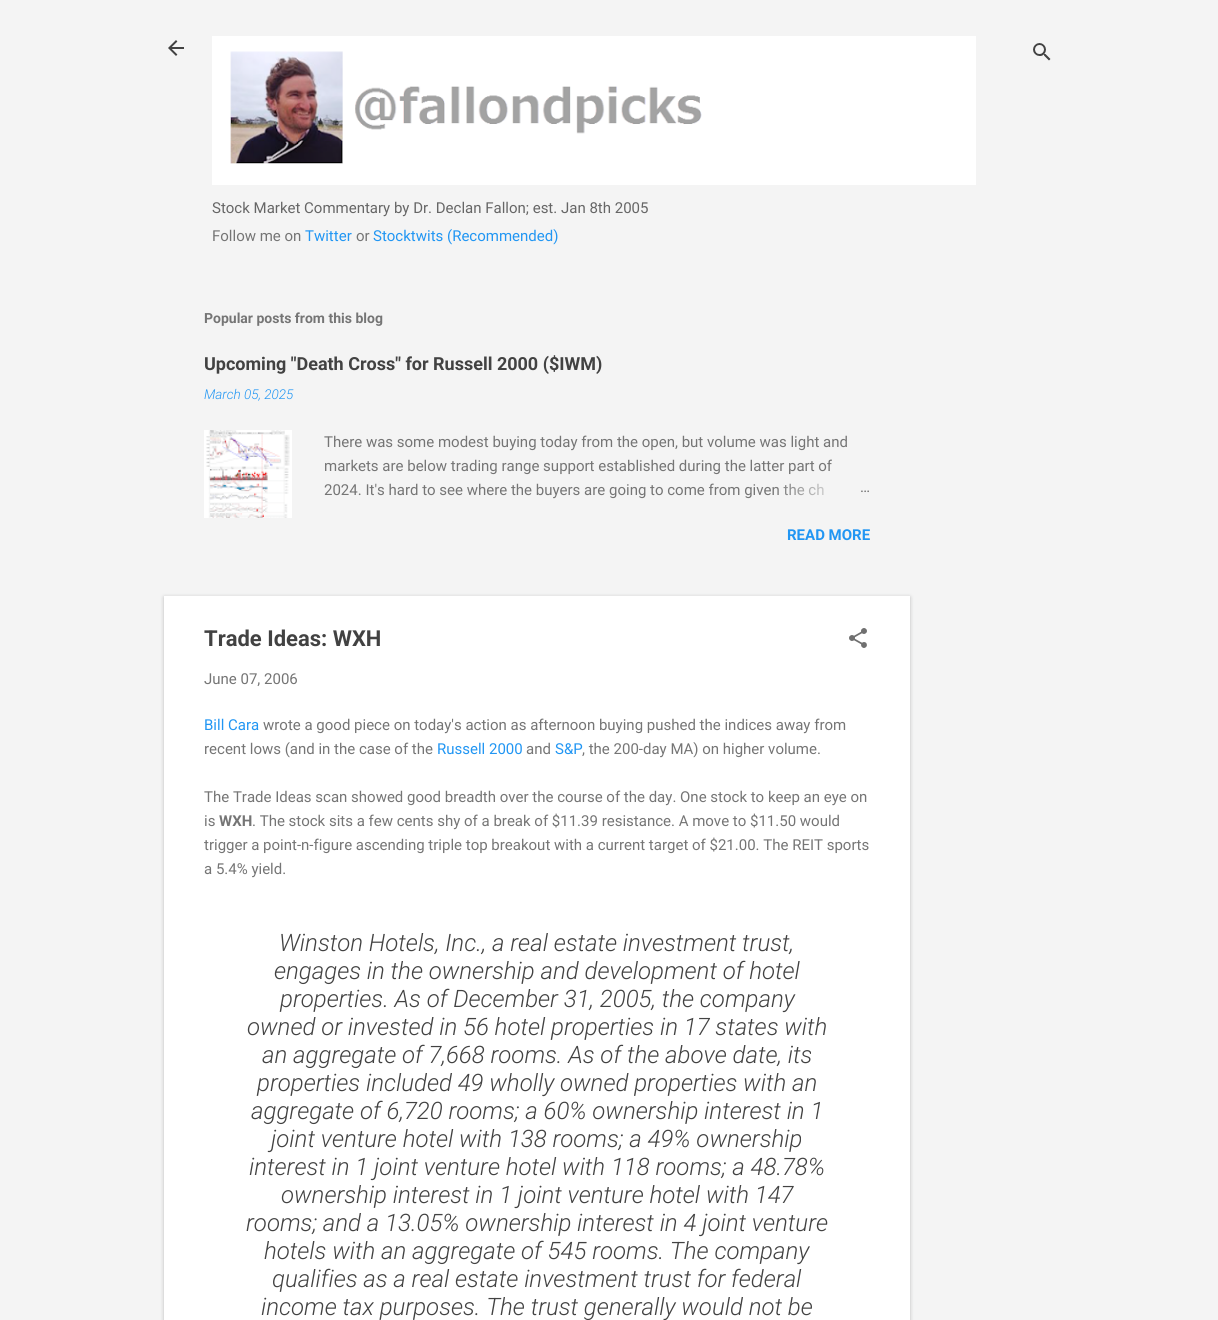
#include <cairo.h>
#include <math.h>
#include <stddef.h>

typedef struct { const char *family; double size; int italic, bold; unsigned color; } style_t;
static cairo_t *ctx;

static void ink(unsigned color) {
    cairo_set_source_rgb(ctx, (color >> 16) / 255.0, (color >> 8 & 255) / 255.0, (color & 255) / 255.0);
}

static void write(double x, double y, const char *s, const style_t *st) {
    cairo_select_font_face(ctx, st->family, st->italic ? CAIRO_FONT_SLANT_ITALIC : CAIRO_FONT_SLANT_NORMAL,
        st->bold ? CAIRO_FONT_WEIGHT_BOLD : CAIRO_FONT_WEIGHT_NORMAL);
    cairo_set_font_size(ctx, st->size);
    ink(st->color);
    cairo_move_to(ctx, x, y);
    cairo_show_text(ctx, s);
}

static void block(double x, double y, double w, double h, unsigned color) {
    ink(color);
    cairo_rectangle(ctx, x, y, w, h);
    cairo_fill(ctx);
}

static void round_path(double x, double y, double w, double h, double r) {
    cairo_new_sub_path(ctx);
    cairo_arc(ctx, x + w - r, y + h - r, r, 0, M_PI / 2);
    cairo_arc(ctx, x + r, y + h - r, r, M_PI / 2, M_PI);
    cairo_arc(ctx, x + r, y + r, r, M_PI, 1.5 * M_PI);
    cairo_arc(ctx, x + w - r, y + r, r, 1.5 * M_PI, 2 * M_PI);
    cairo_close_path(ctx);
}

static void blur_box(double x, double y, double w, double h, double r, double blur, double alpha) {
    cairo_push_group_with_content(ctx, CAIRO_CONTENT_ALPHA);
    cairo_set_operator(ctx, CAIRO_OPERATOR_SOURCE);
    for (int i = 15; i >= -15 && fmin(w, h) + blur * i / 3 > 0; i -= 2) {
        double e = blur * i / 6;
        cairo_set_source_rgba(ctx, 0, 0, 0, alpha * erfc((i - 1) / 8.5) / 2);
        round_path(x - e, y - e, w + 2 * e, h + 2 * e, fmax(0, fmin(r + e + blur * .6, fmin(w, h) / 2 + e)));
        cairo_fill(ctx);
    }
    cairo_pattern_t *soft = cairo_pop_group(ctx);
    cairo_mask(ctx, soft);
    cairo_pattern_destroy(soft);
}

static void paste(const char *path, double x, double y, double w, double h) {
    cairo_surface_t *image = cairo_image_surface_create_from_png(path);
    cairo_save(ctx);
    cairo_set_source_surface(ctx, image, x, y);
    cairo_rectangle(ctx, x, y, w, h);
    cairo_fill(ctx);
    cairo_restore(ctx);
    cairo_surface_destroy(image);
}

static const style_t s1 = {"Roboto", 15, 0, 0, 0x666666};
static const style_t s2 = {"Roboto", 15, 0, 0, 0x757575};
static const style_t s3 = {"Roboto", 15, 0, 0, 0x2196f3};
static const style_t s4 = {"Roboto", 14, 0, 1, 0x757575};
static const style_t s5 = {"Roboto", 18, 0, 1, 0x424242};
static const style_t s6 = {"Roboto Light", 13.5, 1, 0, 0x2196f3};
static const style_t s7 = {"Roboto", 15, 0, 1, 0x2196f3};
static const style_t s8 = {"Roboto", 22, 0, 1, 0x424242};
static const style_t s9 = {"Roboto", 15, 0, 1, 0x757575};
static const style_t s10 = {"Roboto Light", 24, 1, 0, 0x424242};

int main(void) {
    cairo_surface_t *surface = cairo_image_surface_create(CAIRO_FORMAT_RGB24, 1218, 1320);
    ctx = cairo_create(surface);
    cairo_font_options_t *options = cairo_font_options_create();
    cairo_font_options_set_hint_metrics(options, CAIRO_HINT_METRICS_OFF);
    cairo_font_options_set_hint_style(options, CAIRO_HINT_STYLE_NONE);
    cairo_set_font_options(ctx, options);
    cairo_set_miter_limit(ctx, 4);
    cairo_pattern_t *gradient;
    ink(0xf4f4f4);
    cairo_paint(ctx);
    paste("pic1.png", 168, 40, 16, 16);
    paste("pic2.png", 1033, 43, 18, 18);
    paste("pic3.png", 212, 36, 764, 149);
    write(212, 213, "Stock Market Commentary by Dr. Declan Fallon; est. Jan 8th 2005", &s1);
    write(212, 241, "Follow me on", &s2);
    write(305, 241, "Twitter", &s3);
    write(356, 241, "or", &s2);
    write(373, 241, "Stocktwits (Recommended)", &s3);
    write(204, 323, "Popular posts from this blog", &s4);
    write(204, 370, "Upcoming \"Death Cross\" for Russell 2000 ($IWM)", &s5);
    write(204, 399, "March 05, 2025", &s6);
    paste("pic4.png", 204, 430, 88, 88);
    write(324, 447, "There was some modest buying today from the open, but volume was light and", &s2);
    write(324, 471, "markets are below trading range support established during the latter part of", &s2);
    write(324, 495, "2024. It's hard to see where the buyers are going to come from given the ch", &s2);
    gradient = cairo_pattern_create_linear(870, 490, 774, 490);
    cairo_pattern_add_color_stop_rgba(gradient, 0, 0.957, 0.957, 0.957, 1);
    cairo_pattern_add_color_stop_rgba(gradient, 0.2, 0.957, 0.957, 0.957, 1);
    cairo_pattern_add_color_stop_rgba(gradient, 1, 0.957, 0.957, 0.957, 0);
    cairo_set_source(ctx, gradient);
    cairo_pattern_destroy(gradient);
    cairo_rectangle(ctx, 776, 483, 48, 13);
    cairo_fill(ctx);
    write(860, 492, "…", &s2);
    write(787, 540, "READ MORE", &s7);
    ink(0x3c4043);
    blur_box(164, 597, 746, 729, 0, 2, 0.3);
    block(164, 596, 746, 724, 0xffffff);
    write(204, 646, "Trade Ideas: WXH", &s8);
    paste("pic5.png", 849, 628, 18, 20);
    write(204, 684, "June 07, 2006", &s2);
    write(204, 730, "Bill Cara", &s3);
    write(263, 730, "wrote a good piece on today's action as afternoon buying pushed the indices away from", &s2);
    write(204, 754, "recent lows (and in the case of the", &s2);
    write(437, 754, "Russell 2000", &s3);
    write(526, 754, "and", &s2);
    write(555, 754, "S&P", &s3);
    write(582, 754, ", the 200-day MA) on higher volume.", &s2);
    write(204, 802, "The Trade Ideas scan showed good breadth over the course of the day. One stock to keep an eye on", &s2);
    write(204, 826, "is", &s2);
    write(219, 826, "WXH", &s9);
    write(252, 826, ". The stock sits a few cents shy of a break of $11.39 resistance. A move to $11.50 would", &s2);
    write(204, 850, "trigger a point-n-figure ascending triple top breakout with a current target of $21.00. The REIT sports", &s2);
    write(204, 874, "a 5.4% yield.", &s2);
    write(279, 951, "Winston Hotels, Inc., a real estate investment trust,", &s10);
    write(274, 979, "engages in the ownership and development of hotel", &s10);
    write(280, 1007, "properties. As of December 31, 2005, the company", &s10);
    write(247, 1035, "owned or invested in 56 hotel properties in 17 states with", &s10);
    write(262, 1063, "an aggregate of 7,668 rooms. As of the above date, its", &s10);
    write(257, 1091, "properties included 49 wholly owned properties with an", &s10);
    write(251, 1119, "aggregate of 6,720 rooms; a 60% ownership interest in 1", &s10);
    write(271, 1147, "joint venture hotel with 138 rooms; a 49% ownership", &s10);
    write(249, 1175, "interest in 1 joint venture hotel with 118 rooms; a 48.78%", &s10);
    write(281, 1203, "ownership interest in 1 joint venture hotel with 147", &s10);
    write(246, 1231, "rooms; and a 13.05% ownership interest in 4 joint venture", &s10);
    write(264, 1259, "hotels with an aggregate of 545 rooms. The company", &s10);
    write(272, 1287, "qualifies as a real estate investment trust for federal", &s10);
    write(261, 1315, "income tax purposes. The trust generally would not be", &s10);
    cairo_surface_write_to_png(surface, "screenshot.png");
    cairo_font_options_destroy(options);
    cairo_destroy(ctx);
    cairo_surface_destroy(surface);
    return 0;
}
